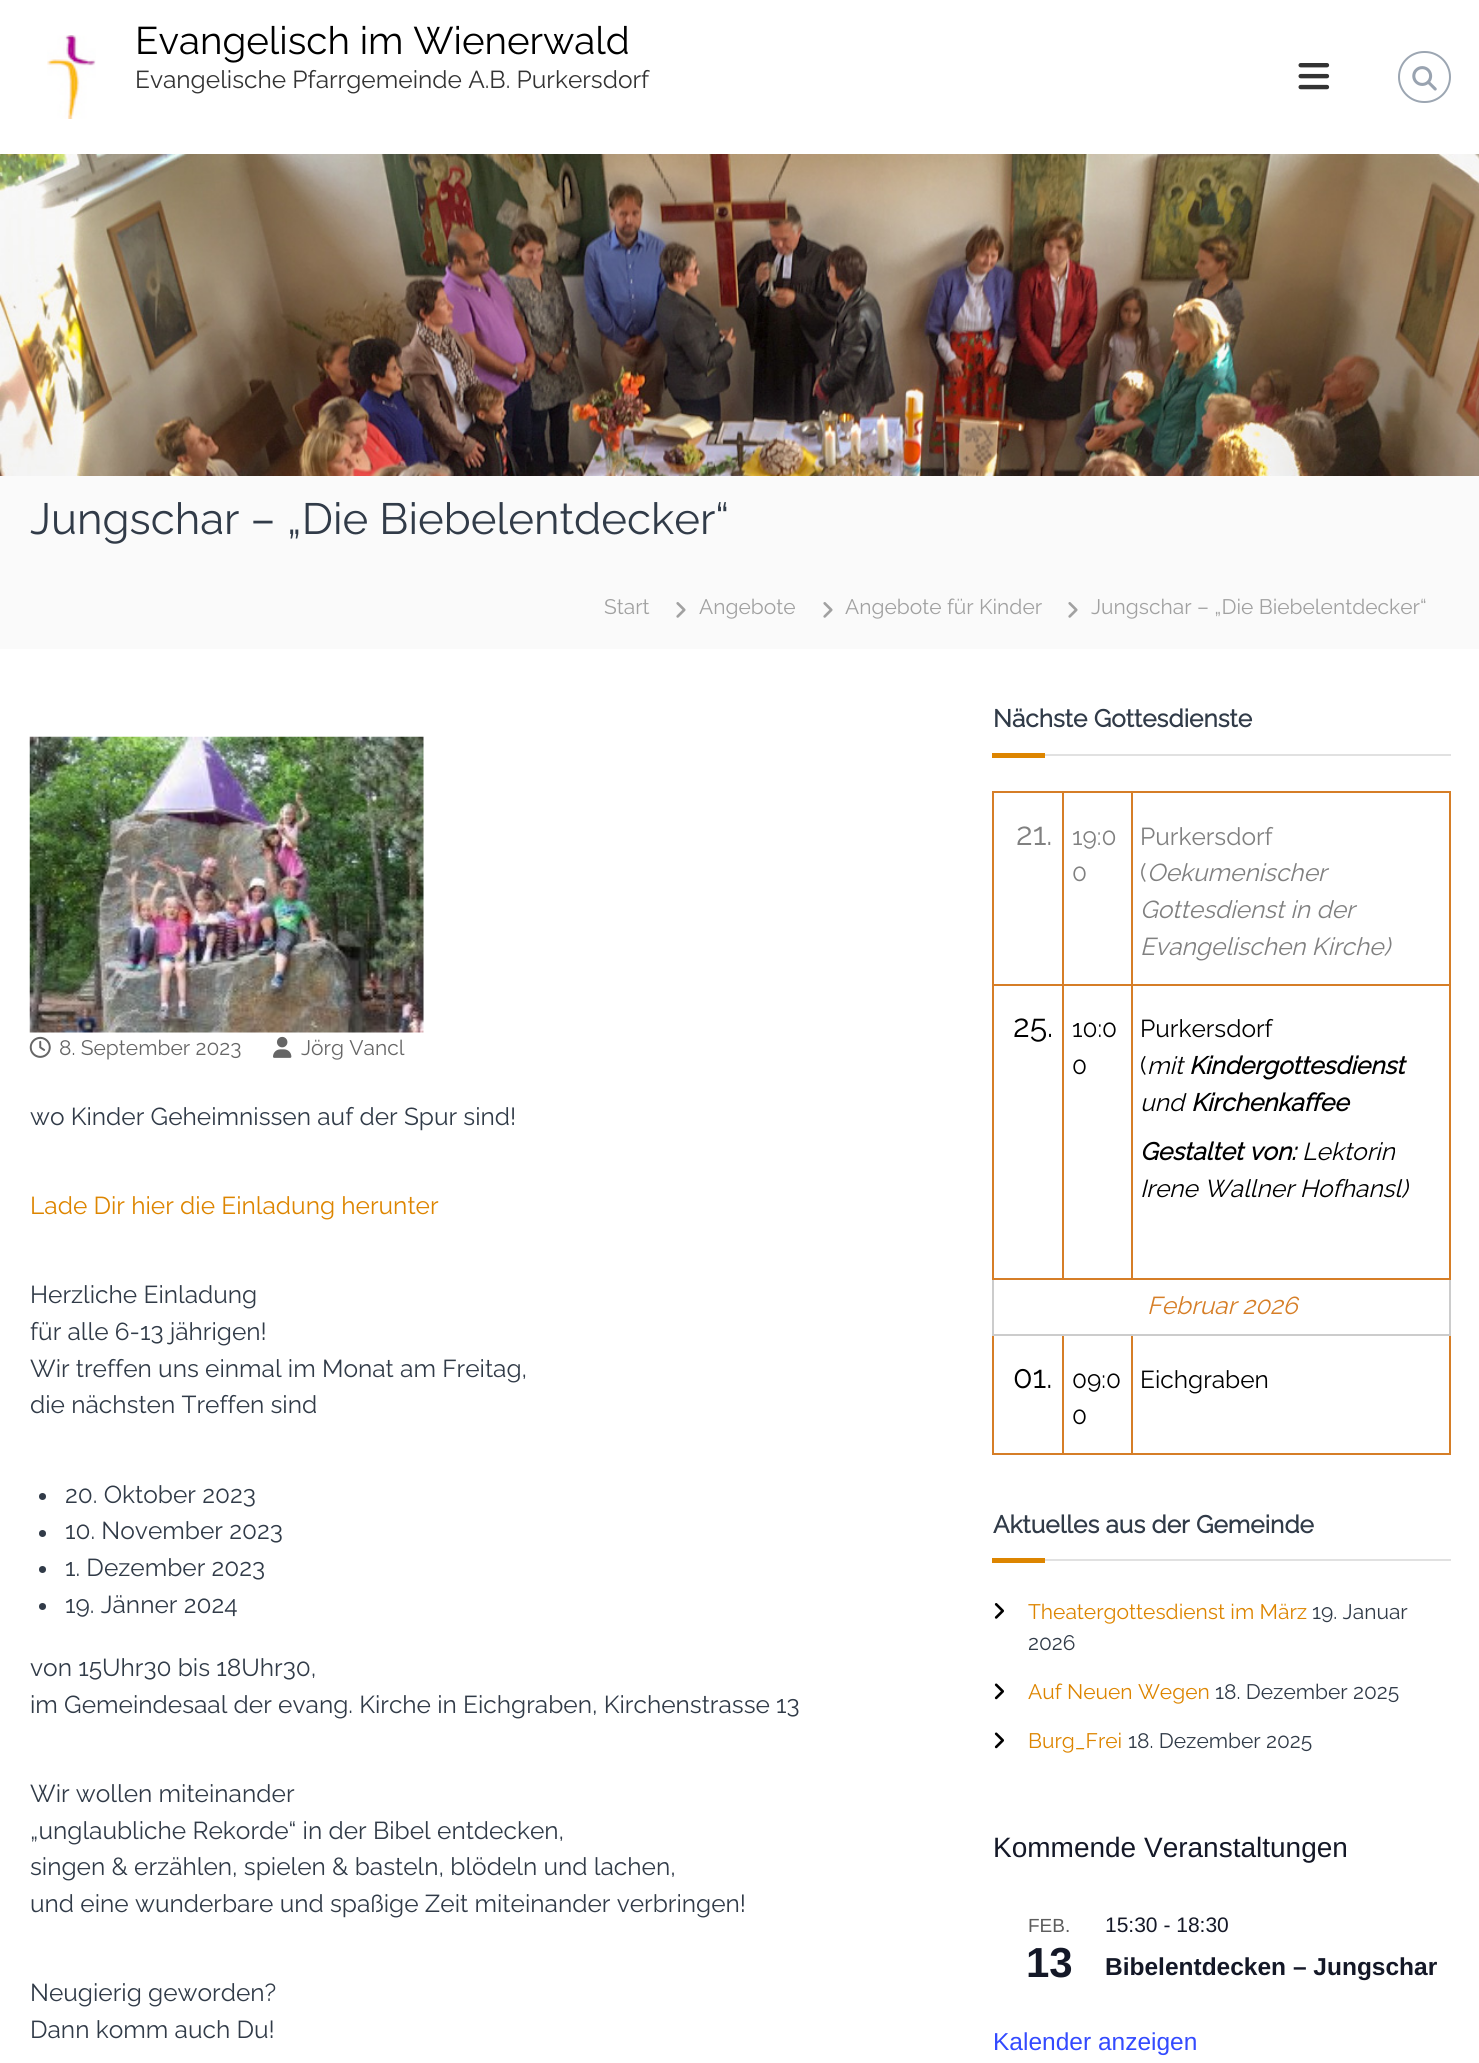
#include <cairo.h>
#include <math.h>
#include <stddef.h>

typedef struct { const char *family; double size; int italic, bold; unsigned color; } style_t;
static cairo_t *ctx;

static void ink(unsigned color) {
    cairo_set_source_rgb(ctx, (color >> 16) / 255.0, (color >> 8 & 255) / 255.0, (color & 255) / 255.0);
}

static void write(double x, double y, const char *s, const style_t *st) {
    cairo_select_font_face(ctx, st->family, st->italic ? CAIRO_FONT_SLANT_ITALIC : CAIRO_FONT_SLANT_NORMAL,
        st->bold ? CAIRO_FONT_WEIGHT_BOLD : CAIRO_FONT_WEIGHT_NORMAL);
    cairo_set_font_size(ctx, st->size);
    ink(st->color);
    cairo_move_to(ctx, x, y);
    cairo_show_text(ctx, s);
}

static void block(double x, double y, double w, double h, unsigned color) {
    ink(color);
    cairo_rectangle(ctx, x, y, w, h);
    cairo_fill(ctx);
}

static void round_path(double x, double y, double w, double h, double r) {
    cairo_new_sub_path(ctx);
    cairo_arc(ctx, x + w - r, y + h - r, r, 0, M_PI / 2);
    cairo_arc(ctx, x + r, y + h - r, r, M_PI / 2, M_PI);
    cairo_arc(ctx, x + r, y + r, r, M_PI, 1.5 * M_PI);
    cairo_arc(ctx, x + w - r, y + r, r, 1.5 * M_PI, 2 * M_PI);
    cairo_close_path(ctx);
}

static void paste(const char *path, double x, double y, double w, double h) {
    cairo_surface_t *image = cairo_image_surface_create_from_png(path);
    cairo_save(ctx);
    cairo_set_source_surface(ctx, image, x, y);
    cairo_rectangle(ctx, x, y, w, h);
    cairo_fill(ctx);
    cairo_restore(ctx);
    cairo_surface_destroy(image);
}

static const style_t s1 = {"Raleway", 38.5, 0, 0, 0x000000};
static const style_t s2 = {"Raleway", 24.5, 0, 0, 0x333333};
static const style_t s3 = {"Raleway", 43.75, 0, 0, 0x313b48};
static const style_t s4 = {"Raleway", 21, 0, 0, 0xa1a1a1};
static const style_t s5 = {"Raleway", 21, 0, 0, 0x666666};
static const style_t s6 = {"Raleway", 24.5, 0, 0, 0x313b48};
static const style_t s7 = {"Raleway", 24.5, 0, 0, 0xdd8500};
static const style_t s8 = {"Raleway", 24.5, 0, 1, 0x313b48};
static const style_t s9 = {"Raleway", 32, 0, 0, 0x808080};
static const style_t s10 = {"Raleway", 24.5, 0, 0, 0x808080};
static const style_t s11 = {"Raleway", 24.5, 1, 0, 0x808080};
static const style_t s12 = {"Raleway", 32, 0, 0, 0x000000};
static const style_t s13 = {"Raleway", 24.5, 0, 0, 0x000000};
static const style_t s14 = {"Raleway", 24.5, 1, 0, 0x000000};
static const style_t s15 = {"Raleway", 24.5, 1, 1, 0x000000};
static const style_t s16 = {"Raleway", 24.5, 1, 0, 0xd67e27};
static const style_t s17 = {"Raleway", 21, 0, 0, 0xdd8500};
static const style_t s18 = {"Raleway", 21, 0, 0, 0x313b48};
static const style_t s19 = {"Liberation Sans", 28, 0, 0, 0x141827};
static const style_t s20 = {"Liberation Sans", 19, 0, 0, 0x5d5d5d};
static const style_t s21 = {"Liberation Sans", 42, 0, 1, 0x141827};
static const style_t s22 = {"Liberation Sans", 21, 0, 0, 0x141827};
static const style_t s23 = {"Liberation Sans", 24.5, 0, 1, 0x141827};
static const style_t s24 = {"Liberation Sans", 24.5, 0, 0, 0x334aff};

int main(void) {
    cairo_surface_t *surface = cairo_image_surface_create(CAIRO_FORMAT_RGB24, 1479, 2063);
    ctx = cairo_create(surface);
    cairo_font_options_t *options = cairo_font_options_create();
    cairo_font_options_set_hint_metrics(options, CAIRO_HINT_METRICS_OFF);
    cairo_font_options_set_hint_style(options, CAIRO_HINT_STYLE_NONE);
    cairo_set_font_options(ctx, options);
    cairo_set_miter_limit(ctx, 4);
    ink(0xffffff);
    cairo_paint(ctx);
    paste("pic1.png", 47, 35, 49, 84);
    write(135, 54, "Evangelisch im Wienerwald", &s1);
    write(135, 88, "Evangelische Pfarrgemeinde A.B. Purkersdorf", &s2);
    paste("pic2.png", 1298, 63, 32, 27);
    round_path(1399, 52, 51, 50, 25);
    ink(0x9ca6b2);
    cairo_stroke(ctx);
    paste("pic3.png", 1412, 66, 25, 25);
    paste("pic4.png", 0, 154, 1479, 322);
    block(0, 476, 1479, 173, 0xfafafa);
    write(30, 534, "Jungschar – „Die Biebelentdecker“", &s3);
    write(604, 614, "Start", &s4);
    paste("pic5.png", 676, 602, 10, 16);
    write(699, 614, "Angebote", &s4);
    paste("pic5.png", 823, 602, 10, 16);
    write(845, 614, "Angebote für Kinder", &s4);
    paste("pic5.png", 1068, 602, 10, 16);
    write(1091, 614, "Jungschar – „Die Biebelentdecker“", &s4);
    paste("pic6.png", 29, 736, 395, 297);
    paste("pic7.png", 29, 1036, 22, 22);
    write(59, 1055, "8. September 2023", &s5);
    paste("pic8.png", 273, 1036, 19, 22);
    write(301, 1055, "Jörg Vancl", &s5);
    write(30, 1125, "wo Kinder Geheimnissen auf der Spur sind!", &s6);
    write(30, 1214, "Lade Dir hier die Einladung herunter", &s7);
    write(30, 1303, "Herzliche Einladung", &s6);
    write(30, 1340, "für alle 6-13 jährigen!", &s6);
    write(30, 1377, "Wir treffen uns einmal im Monat am Freitag,", &s6);
    write(30, 1413, "die nächsten Treffen sind", &s6);
    cairo_new_path(ctx);
    cairo_arc(ctx, 42.5, 1496.5, 3.5, 0, 2 * M_PI);
    cairo_fill(ctx);
    write(65, 1503, "20. Oktober 2023", &s6);
    cairo_new_path(ctx);
    cairo_arc(ctx, 42.5, 1533.5, 3.5, 0, 2 * M_PI);
    cairo_fill(ctx);
    write(65, 1539, "10. November 2023", &s6);
    cairo_new_path(ctx);
    cairo_arc(ctx, 42.5, 1569.5, 3.5, 0, 2 * M_PI);
    cairo_fill(ctx);
    write(65, 1576, "1. Dezember 2023", &s6);
    cairo_new_path(ctx);
    cairo_arc(ctx, 42.5, 1606.5, 3.5, 0, 2 * M_PI);
    cairo_fill(ctx);
    write(65, 1613, "19. Jänner 2024", &s6);
    write(30, 1676, "von 15Uhr30 bis 18Uhr30,", &s6);
    write(30, 1713, "im Gemeindesaal der evang. Kirche in Eichgraben, Kirchenstrasse 13", &s6);
    write(30, 1802, "Wir wollen miteinander", &s6);
    write(30, 1839, "„unglaubliche Rekorde“ in der Bibel entdecken,", &s6);
    write(30, 1875, "singen & erzählen, spielen & basteln, blödeln und lachen,", &s6);
    write(30, 1912, "und eine wunderbare und spaßige Zeit miteinander verbringen!", &s6);
    write(30, 2001, "Neugierig geworden?", &s6);
    write(30, 2038, "Dann komm auch Du!", &s6);
    write(993, 727, "Nächste Gottesdienste", &s8);
    block(992, 753, 53, 5, 0xdd8500);
    block(1045, 754, 406, 2, 0xe1e1e1);
    block(1131, 791, 320, 2, 0xd67e27);
    block(1131, 984, 320, 2, 0xd67e27);
    block(1449, 1334, 2, 120, 0xd67e27);
    block(1449, 1278, 2, 57, 0xcccccc);
    block(1449, 984, 2, 295, 0xd67e27);
    block(1131, 1278, 320, 2, 0xd67e27);
    block(1131, 984, 2, 295, 0xd67e27);
    block(1062, 984, 70, 2, 0xd67e27);
    block(1131, 791, 2, 194, 0xd67e27);
    block(1062, 791, 70, 2, 0xd67e27);
    block(1062, 1278, 70, 2, 0xd67e27);
    block(1062, 984, 2, 295, 0xd67e27);
    block(992, 984, 72, 2, 0xd67e27);
    block(1062, 791, 2, 194, 0xd67e27);
    block(992, 791, 72, 2, 0xd67e27);
    block(1131, 1453, 320, 2, 0xd67e27);
    block(1131, 1334, 2, 120, 0xd67e27);
    block(1062, 1453, 70, 2, 0xd67e27);
    block(1062, 1334, 2, 120, 0xd67e27);
    block(992, 1453, 72, 2, 0xd67e27);
    block(992, 1334, 2, 120, 0xd67e27);
    block(992, 1334, 459, 2, 0xcccccc);
    block(992, 1278, 2, 57, 0xcccccc);
    block(992, 1278, 72, 2, 0xd67e27);
    block(992, 984, 2, 295, 0xd67e27);
    block(992, 791, 2, 194, 0xd67e27);
    write(1016, 845, "21.", &s9);
    write(1072, 845, "19:0", &s10);
    write(1072, 881, "0", &s10);
    block(1449, 791, 2, 194, 0xd67e27);
    write(1140, 845, "Purkersdorf", &s10);
    write(1140, 881, "(", &s10);
    write(1147, 881, "Oekumenischer", &s11);
    write(1140, 918, "Gottesdienst in der", &s11);
    write(1140, 955, "Evangelischen Kirche)", &s11);
    write(1013, 1037, "25.", &s12);
    write(1072, 1037, "10:0", &s13);
    write(1072, 1074, "0", &s13);
    write(1140, 1037, "Purkersdorf", &s13);
    write(1140, 1074, "(", &s13);
    write(1147, 1074, "mit", &s14);
    write(1189, 1074, "Kindergottesdienst", &s15);
    write(1140, 1111, "und", &s14);
    write(1191, 1111, "Kirchenkaffee", &s15);
    write(1140, 1160, "Gestaltet von:", &s15);
    write(1302, 1160, "Lektorin", &s14);
    write(1140, 1197, "Irene Wallner Hofhansl)", &s14);
    write(1147, 1314, "Februar 2026", &s16);
    write(1013, 1388, "01.", &s12);
    write(1072, 1388, "09:0", &s13);
    write(1072, 1424, "0", &s13);
    write(1140, 1388, "Eichgraben", &s13);
    write(993, 1533, "Aktuelles aus der Gemeinde", &s8);
    block(992, 1558, 53, 5, 0xdd8500);
    block(1045, 1559, 406, 2, 0xe1e1e1);
    paste("pic9.png", 994, 1603, 10, 16);
    write(1028, 1619, "Theatergottesdienst im März", &s17);
    write(1312, 1619, "19. Januar", &s18);
    write(1028, 1650, "2026", &s18);
    paste("pic10.png", 994, 1683, 10, 17);
    write(1028, 1699, "Auf Neuen Wegen", &s17);
    write(1215, 1699, "18. Dezember 2025", &s18);
    paste("pic10.png", 994, 1732, 10, 17);
    write(1028, 1748, "Burg_Frei", &s17);
    write(1128, 1748, "18. Dezember 2025", &s18);
    write(993, 1857, "Kommende Veranstaltungen", &s19);
    write(1028, 1932, "FEB.", &s20);
    write(1026, 1977, "13", &s21);
    write(1105, 1932, "15:30 - 18:30", &s22);
    write(1105, 1975, "Bibelentdecken – Jungschar", &s23);
    write(993, 2050, "Kalender anzeigen", &s24);
    cairo_surface_write_to_png(surface, "screenshot.png");
    cairo_font_options_destroy(options);
    cairo_destroy(ctx);
    cairo_surface_destroy(surface);
    return 0;
}
